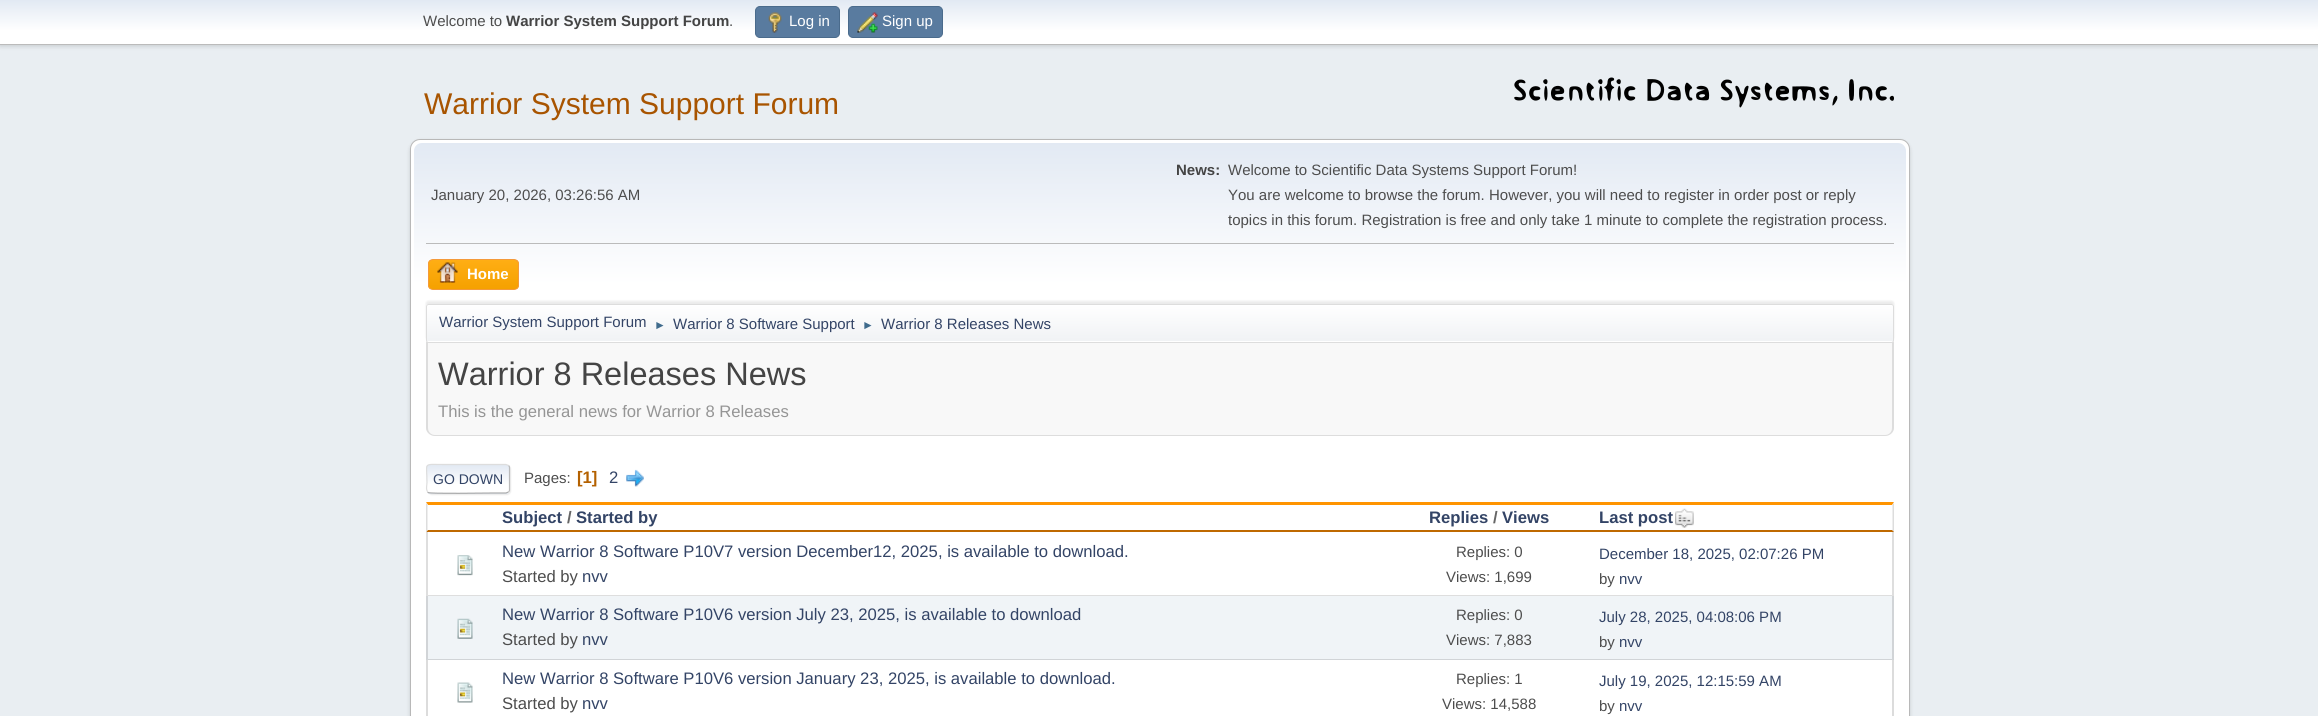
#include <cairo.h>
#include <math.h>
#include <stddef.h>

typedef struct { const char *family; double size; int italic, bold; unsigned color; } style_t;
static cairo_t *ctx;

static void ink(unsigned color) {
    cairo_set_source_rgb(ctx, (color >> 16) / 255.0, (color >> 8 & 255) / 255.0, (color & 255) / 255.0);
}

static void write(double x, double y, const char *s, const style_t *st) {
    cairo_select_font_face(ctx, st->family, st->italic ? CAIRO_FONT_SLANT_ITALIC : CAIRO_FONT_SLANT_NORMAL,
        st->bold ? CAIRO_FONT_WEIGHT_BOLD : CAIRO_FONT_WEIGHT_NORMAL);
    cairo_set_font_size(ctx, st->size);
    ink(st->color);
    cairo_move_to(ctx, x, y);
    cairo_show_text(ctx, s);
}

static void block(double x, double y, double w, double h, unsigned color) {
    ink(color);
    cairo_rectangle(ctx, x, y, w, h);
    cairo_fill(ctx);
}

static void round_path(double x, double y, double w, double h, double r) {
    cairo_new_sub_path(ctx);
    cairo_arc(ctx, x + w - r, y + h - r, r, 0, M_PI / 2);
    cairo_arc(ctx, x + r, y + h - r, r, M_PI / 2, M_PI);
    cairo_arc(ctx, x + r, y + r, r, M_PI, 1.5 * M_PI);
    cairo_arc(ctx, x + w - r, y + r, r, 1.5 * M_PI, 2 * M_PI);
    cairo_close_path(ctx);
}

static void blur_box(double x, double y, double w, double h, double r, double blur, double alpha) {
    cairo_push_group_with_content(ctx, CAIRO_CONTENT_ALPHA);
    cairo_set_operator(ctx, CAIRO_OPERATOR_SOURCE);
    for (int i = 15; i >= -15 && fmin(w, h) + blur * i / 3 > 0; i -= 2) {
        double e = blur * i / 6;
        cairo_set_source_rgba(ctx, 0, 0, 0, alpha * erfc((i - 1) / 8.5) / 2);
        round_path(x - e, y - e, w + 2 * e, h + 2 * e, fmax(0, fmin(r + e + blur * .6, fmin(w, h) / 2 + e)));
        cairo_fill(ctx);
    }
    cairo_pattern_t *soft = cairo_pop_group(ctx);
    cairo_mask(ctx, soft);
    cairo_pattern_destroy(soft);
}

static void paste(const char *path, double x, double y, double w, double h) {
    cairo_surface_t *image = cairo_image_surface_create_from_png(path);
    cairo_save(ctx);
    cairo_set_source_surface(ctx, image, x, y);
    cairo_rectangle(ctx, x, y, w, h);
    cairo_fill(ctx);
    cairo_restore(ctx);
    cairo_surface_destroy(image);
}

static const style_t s1 = {"Liberation Sans", 15, 0, 0, 0x4d4d4d};
static const style_t s2 = {"Liberation Sans", 15, 0, 1, 0x444444};
static const style_t s3 = {"Liberation Sans", 15, 0, 0, 0xffffff};
static const style_t s4 = {"Liberation Sans", 30, 0, 0, 0xa85400};
static const style_t s5 = {"Liberation Sans", 15, 0, 1, 0xffffff};
static const style_t s6 = {"Liberation Sans", 15, 0, 0, 0x334466};
static const style_t s7 = {"Liberation Sans", 12, 0, 0, 0x3f6b8c};
static const style_t s8 = {"Liberation Sans", 32.5, 0, 0, 0x444444};
static const style_t s9 = {"Liberation Sans", 16.65, 0, 0, 0x959595};
static const style_t s10 = {"Liberation Sans", 14, 0, 0, 0x334466};
static const style_t s11 = {"Liberation Sans", 16.65, 0, 1, 0xb46100};
static const style_t s12 = {"Liberation Sans", 16.65, 0, 0, 0x334466};
static const style_t s13 = {"Liberation Sans", 16.65, 0, 1, 0x334466};
static const style_t s14 = {"Liberation Sans", 16.65, 0, 1, 0x666666};
static const style_t s15 = {"Liberation Sans", 16.65, 0, 0, 0x4d4d4d};

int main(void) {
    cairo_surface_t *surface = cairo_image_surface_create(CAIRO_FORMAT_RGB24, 2318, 716);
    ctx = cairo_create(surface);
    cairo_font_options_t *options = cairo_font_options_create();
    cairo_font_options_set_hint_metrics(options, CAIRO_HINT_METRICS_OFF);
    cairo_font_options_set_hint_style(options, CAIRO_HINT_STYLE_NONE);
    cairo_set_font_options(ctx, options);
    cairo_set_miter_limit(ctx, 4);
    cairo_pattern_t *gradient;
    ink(0xe9eef2);
    cairo_paint(ctx);
    ink(0x000000);
    blur_box(0, 1, 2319, 45, 0, 2.5, 0.16);
    gradient = cairo_pattern_create_linear(1159, 0, 1159, 44);
    cairo_pattern_add_color_stop_rgba(gradient, 0, 0.886, 0.914, 0.953, 1);
    cairo_pattern_add_color_stop_rgba(gradient, 0.7, 1, 1, 1, 1);
    cairo_set_source(ctx, gradient);
    cairo_pattern_destroy(gradient);
    cairo_rectangle(ctx, 0, 0, 2318, 44);
    cairo_fill(ctx);
    block(0, 44, 2318, 1, 0xbbbbbb);
    write(423, 26, "Welcome to", &s1);
    write(506, 26, "Warrior System Support Forum", &s2);
    write(729, 26, ".", &s1);
    ink(0x597b9f);
    round_path(755.5, 6.5, 84, 31, 4.5);
    cairo_fill_preserve(ctx);
    ink(0x4a6b8c);
    cairo_set_line_width(ctx, 1);
    cairo_stroke(ctx);
    paste("pic1.png", 768, 12, 14, 21);
    write(789, 26, "Log in", &s3);
    ink(0x597b9f);
    round_path(848.5, 6.5, 94, 31, 4.5);
    cairo_fill_preserve(ctx);
    ink(0x4a6b8c);
    cairo_stroke(ctx);
    paste("pic2.png", 857, 12, 21, 21);
    write(882, 26, "Sign up", &s3);
    write(424, 114, "Warrior System Support Forum", &s4);
    paste("pic3.png", 1514, 77, 380, 31);
    ink(0x000000);
    blur_box(410, 141, 1500, 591, 10, 2, 0.14);
    ink(0xffffff);
    round_path(410.5, 139.5, 1499, 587, 9.5);
    cairo_fill_preserve(ctx);
    ink(0xb8b8b8);
    cairo_stroke(ctx);
    gradient = cairo_pattern_create_linear(1160, 142, 1160, 345);
    cairo_pattern_add_color_stop_rgba(gradient, 0, 0.886, 0.914, 0.953, 1);
    cairo_pattern_add_color_stop_rgba(gradient, 0.7, 1, 1, 1, 1);
    cairo_set_source(ctx, gradient);
    cairo_pattern_destroy(gradient);
    cairo_new_path(ctx);
    cairo_move_to(ctx, 422, 143);
    cairo_line_to(ctx, 1898, 143);
    cairo_curve_to(ctx, 1902.5, 143, 1906, 146.5, 1906, 151);
    cairo_line_to(ctx, 1906, 345);
    cairo_line_to(ctx, 414, 345);
    cairo_line_to(ctx, 414, 151);
    cairo_curve_to(ctx, 414, 146.5, 417.5, 143, 422, 143);
    cairo_close_path(ctx);
    cairo_fill(ctx);
    block(426, 243, 1468, 1, 0xbbbbbb);
    write(431, 200, "January 20, 2026, 03:26:56 AM", &s1);
    write(1176, 175, "News:", &s2);
    write(1228, 175, "Welcome to Scientific Data Systems Support Forum!", &s1);
    write(1228, 200, "You are welcome to browse the forum. However, you will need to register in order post or reply", &s1);
    write(1228, 225, "topics in this forum. Registration is free and only take 1 minute to complete the registration process.", &s1);
    cairo_save(ctx);
    round_path(428, 259, 91, 31, 5);
    cairo_clip(ctx);
    gradient = cairo_pattern_create_linear(473, 260, 473, 289);
    cairo_pattern_add_color_stop_rgba(gradient, 0, 1, 0.682, 0.078, 1);
    cairo_pattern_add_color_stop_rgba(gradient, 1, 0.961, 0.631, 0, 1);
    cairo_set_source(ctx, gradient);
    cairo_pattern_destroy(gradient);
    cairo_rectangle(ctx, 428, 260, 91, 29);
    cairo_fill(ctx);
    cairo_restore(ctx);
    round_path(428.5, 259.5, 90, 30, 4.5);
    ink(0xf49a3a);
    cairo_stroke(ctx);
    paste("pic4.png", 437, 262, 21, 21);
    write(467, 279, "Home", &s5);
    ink(0x000000);
    blur_box(426, 301, 1468, 39, 2.5, 1, 0.08);
    ink(0xffffff);
    round_path(426, 304, 1468, 39, 2.5);
    cairo_fill(ctx);
    gradient = cairo_pattern_create_linear(1160, 305, 1160, 341);
    cairo_pattern_add_color_stop_rgba(gradient, 0, 1, 1, 1, 1);
    cairo_pattern_add_color_stop_rgba(gradient, 0.95, 0.945, 0.953, 0.961, 1);
    cairo_set_source(ctx, gradient);
    cairo_pattern_destroy(gradient);
    cairo_rectangle(ctx, 426, 305, 1468, 36);
    cairo_fill(ctx);
    round_path(426.5, 304.5, 1467, 38, 2);
    ink(0xdddddd);
    cairo_stroke(ctx);
    write(439, 327, "Warrior System Support Forum", &s6);
    write(654, 329, "►", &s7);
    write(673, 329, "Warrior 8 Software Support", &s6);
    write(862, 329, "►", &s7);
    write(881, 329, "Warrior 8 Releases News", &s6);
    ink(0xf8f8f8);
    cairo_new_path(ctx);
    cairo_move_to(ctx, 426, 343);
    cairo_line_to(ctx, 1894, 343);
    cairo_line_to(ctx, 1894, 427);
    cairo_curve_to(ctx, 1894, 432, 1890, 436, 1885, 436);
    cairo_line_to(ctx, 435, 436);
    cairo_curve_to(ctx, 430, 436, 426, 432, 426, 427);
    cairo_close_path(ctx);
    cairo_fill(ctx);
    ink(0xdddddd);
    cairo_set_fill_rule(ctx, CAIRO_FILL_RULE_EVEN_ODD);
    cairo_new_path(ctx);
    cairo_move_to(ctx, 426, 342);
    cairo_line_to(ctx, 1894, 342);
    cairo_line_to(ctx, 1894, 428);
    cairo_curve_to(ctx, 1894, 432, 1890, 436, 1885, 436);
    cairo_line_to(ctx, 435, 436);
    cairo_curve_to(ctx, 430, 436, 426, 432, 426, 428);
    cairo_close_path(ctx);
    cairo_move_to(ctx, 428, 342);
    cairo_line_to(ctx, 1892, 342);
    cairo_line_to(ctx, 1892, 428);
    cairo_curve_to(ctx, 1892, 432, 1889, 435, 1885, 435);
    cairo_line_to(ctx, 435, 435);
    cairo_curve_to(ctx, 431, 435, 428, 432, 428, 428);
    cairo_close_path(ctx);
    cairo_fill(ctx);
    write(438, 385, "Warrior 8 Releases News", &s8);
    write(438, 417, "This is the general news for Warrior 8 Releases", &s9);
    ink(0xdddddd);
    blur_box(428, 465, 83, 30, 4, 0.5, 0.57);
    ink(0xffffff);
    round_path(426, 464, 84, 30, 4);
    cairo_fill(ctx);
    cairo_save(ctx);
    cairo_set_fill_rule(ctx, CAIRO_FILL_RULE_WINDING);
    round_path(426, 464, 84, 30, 4);
    cairo_clip(ctx);
    gradient = cairo_pattern_create_linear(468, 465, 468, 493);
    cairo_pattern_add_color_stop_rgba(gradient, 0, 0.886, 0.914, 0.953, 1);
    cairo_pattern_add_color_stop_rgba(gradient, 0.7, 1, 1, 1, 1);
    cairo_set_source(ctx, gradient);
    cairo_pattern_destroy(gradient);
    cairo_rectangle(ctx, 426, 465, 84, 28);
    cairo_fill(ctx);
    gradient = cairo_pattern_create_linear(468, 493, 468, 520);
    cairo_pattern_add_color_stop_rgba(gradient, 0, 0.886, 0.914, 0.953, 1);
    cairo_pattern_add_color_stop_rgba(gradient, 0.7, 1, 1, 1, 1);
    cairo_set_source(ctx, gradient);
    cairo_pattern_destroy(gradient);
    cairo_rectangle(ctx, 426, 493, 84, 1);
    cairo_fill(ctx);
    cairo_restore(ctx);
    cairo_new_path(ctx);
    cairo_move_to(ctx, 508.5, 465.5);
    cairo_curve_to(ctx, 509, 466, 509.5, 466.5, 509.5, 467.5);
    cairo_line_to(ctx, 509.5, 490);
    cairo_curve_to(ctx, 509.5, 491, 509, 491.5, 508.5, 492);
    ink(0xbbbbbb);
    cairo_set_line_width(ctx, 1.2);
    cairo_stroke(ctx);
    cairo_new_path(ctx);
    cairo_move_to(ctx, 508.5, 492);
    cairo_line_to(ctx, 506, 493);
    cairo_line_to(ctx, 493.5, 493);
    cairo_curve_to(ctx, 486, 493, 430, 494, 428, 492.5);
    cairo_line_to(ctx, 428, 492);
    ink(0xaaaaaa);
    cairo_stroke(ctx);
    cairo_new_path(ctx);
    cairo_move_to(ctx, 428, 492);
    cairo_curve_to(ctx, 425.5, 490, 427, 485, 427, 482.5);
    cairo_curve_to(ctx, 427, 462, 422.5, 464.5, 442.5, 464.5);
    cairo_line_to(ctx, 506, 464.5);
    cairo_line_to(ctx, 508.5, 465.5);
    ink(0xdddddd);
    cairo_stroke(ctx);
    write(433, 484, "GO DOWN", &s10);
    write(524, 483, "Pages:", &s1);
    write(577, 483, "[1]", &s11);
    write(609, 483, "2", &s12);
    paste("pic5.png", 626, 469, 18, 18);
    ink(0xff9400);
    cairo_set_fill_rule(ctx, CAIRO_FILL_RULE_WINDING);
    cairo_new_path(ctx);
    cairo_move_to(ctx, 426, 502);
    cairo_line_to(ctx, 1894, 502);
    cairo_line_to(ctx, 1892, 505);
    cairo_line_to(ctx, 428, 505);
    cairo_close_path(ctx);
    cairo_fill(ctx);
    ink(0xdddddd);
    cairo_new_path(ctx);
    cairo_move_to(ctx, 1894, 502.5);
    cairo_line_to(ctx, 1894, 532.5);
    cairo_line_to(ctx, 1892.5, 530);
    cairo_line_to(ctx, 1892.5, 505);
    cairo_close_path(ctx);
    cairo_fill(ctx);
    ink(0xbf6900);
    cairo_new_path(ctx);
    cairo_move_to(ctx, 1894, 532);
    cairo_line_to(ctx, 426, 532);
    cairo_line_to(ctx, 428, 530);
    cairo_line_to(ctx, 1892, 530);
    cairo_close_path(ctx);
    cairo_fill(ctx);
    ink(0xdddddd);
    cairo_new_path(ctx);
    cairo_move_to(ctx, 426, 532.5);
    cairo_line_to(ctx, 426, 502.5);
    cairo_line_to(ctx, 427.5, 505);
    cairo_line_to(ctx, 427.5, 530);
    cairo_close_path(ctx);
    cairo_fill(ctx);
    write(502, 523, "Subject", &s13);
    write(567, 523, "/", &s14);
    write(576, 523, "Started by", &s13);
    write(1429, 523, "Replies", &s13);
    write(1493, 523, "/", &s14);
    write(1502, 523, "Views", &s13);
    write(1599, 523, "Last post", &s13);
    paste("pic6.png", 1675, 508, 19, 20);
    cairo_set_source_rgba(ctx, 0, 0, 0, 0.13);
    cairo_new_path(ctx);
    cairo_move_to(ctx, 1894, 532);
    cairo_line_to(ctx, 1894, 596);
    cairo_line_to(ctx, 1892, 595);
    cairo_line_to(ctx, 1892, 532);
    cairo_close_path(ctx);
    cairo_fill(ctx);
    cairo_new_path(ctx);
    cairo_move_to(ctx, 1894, 596);
    cairo_line_to(ctx, 426, 596);
    cairo_line_to(ctx, 428, 595);
    cairo_line_to(ctx, 1892, 595);
    cairo_close_path(ctx);
    cairo_fill(ctx);
    cairo_new_path(ctx);
    cairo_move_to(ctx, 426, 596);
    cairo_line_to(ctx, 426, 532);
    cairo_line_to(ctx, 428, 532);
    cairo_line_to(ctx, 428, 595);
    cairo_close_path(ctx);
    cairo_fill(ctx);
    paste("pic7.png", 457, 555, 16, 21);
    write(502, 557, "New Warrior 8 Software P10V7 version December12, 2025, is available to download.", &s12);
    write(502, 582, "Started by", &s15);
    write(582, 582, "nvv", &s12);
    write(1456, 557, "Replies: 0", &s1);
    write(1446, 582, "Views: 1,699", &s1);
    write(1599, 559, "December 18, 2025, 02:07:26 PM", &s6);
    write(1599, 584, "by", &s1);
    write(1619, 584, "nvv", &s6);
    block(426, 596, 1468, 64, 0xf0f4f7);
    ink(0xd1d4d7);
    cairo_new_path(ctx);
    cairo_move_to(ctx, 1894, 596);
    cairo_line_to(ctx, 1894, 660);
    cairo_line_to(ctx, 1892, 659);
    cairo_line_to(ctx, 1892, 596);
    cairo_close_path(ctx);
    cairo_fill(ctx);
    cairo_set_source_rgba(ctx, 0, 0, 0, 0.13);
    cairo_new_path(ctx);
    cairo_move_to(ctx, 1894, 660);
    cairo_line_to(ctx, 426, 660);
    cairo_line_to(ctx, 428, 659);
    cairo_line_to(ctx, 1892, 659);
    cairo_close_path(ctx);
    cairo_fill(ctx);
    cairo_new_path(ctx);
    cairo_move_to(ctx, 426, 660);
    cairo_line_to(ctx, 426, 596);
    cairo_line_to(ctx, 428, 596);
    cairo_line_to(ctx, 428, 659);
    cairo_close_path(ctx);
    cairo_fill(ctx);
    paste("pic8.png", 457, 618, 16, 21);
    write(502, 620, "New Warrior 8 Software P10V6 version July 23, 2025, is available to download", &s12);
    write(502, 645, "Started by", &s15);
    write(582, 645, "nvv", &s12);
    write(1456, 620, "Replies: 0", &s1);
    write(1446, 645, "Views: 7,883", &s1);
    write(1599, 622, "July 28, 2025, 04:08:06 PM", &s6);
    write(1599, 647, "by", &s1);
    write(1619, 647, "nvv", &s6);
    ink(0xdcdcdc);
    cairo_new_path(ctx);
    cairo_move_to(ctx, 1894, 660);
    cairo_line_to(ctx, 1894, 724);
    cairo_line_to(ctx, 1892, 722);
    cairo_line_to(ctx, 1892, 660);
    cairo_close_path(ctx);
    cairo_fill(ctx);
    cairo_new_path(ctx);
    cairo_move_to(ctx, 426, 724);
    cairo_line_to(ctx, 426, 660);
    cairo_line_to(ctx, 428, 660);
    cairo_line_to(ctx, 428, 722);
    cairo_close_path(ctx);
    cairo_fill(ctx);
    paste("pic9.png", 457, 682, 16, 21);
    write(502, 684, "New Warrior 8 Software P10V6 version January 23, 2025, is available to download.", &s12);
    write(502, 709, "Started by", &s15);
    write(582, 709, "nvv", &s12);
    write(1456, 684, "Replies: 1", &s1);
    write(1442, 709, "Views: 14,588", &s1);
    write(1599, 686, "July 19, 2025, 12:15:59 AM", &s6);
    write(1599, 711, "by", &s1);
    write(1619, 711, "nvv", &s6);
    cairo_surface_write_to_png(surface, "screenshot.png");
    cairo_font_options_destroy(options);
    cairo_destroy(ctx);
    cairo_surface_destroy(surface);
    return 0;
}
